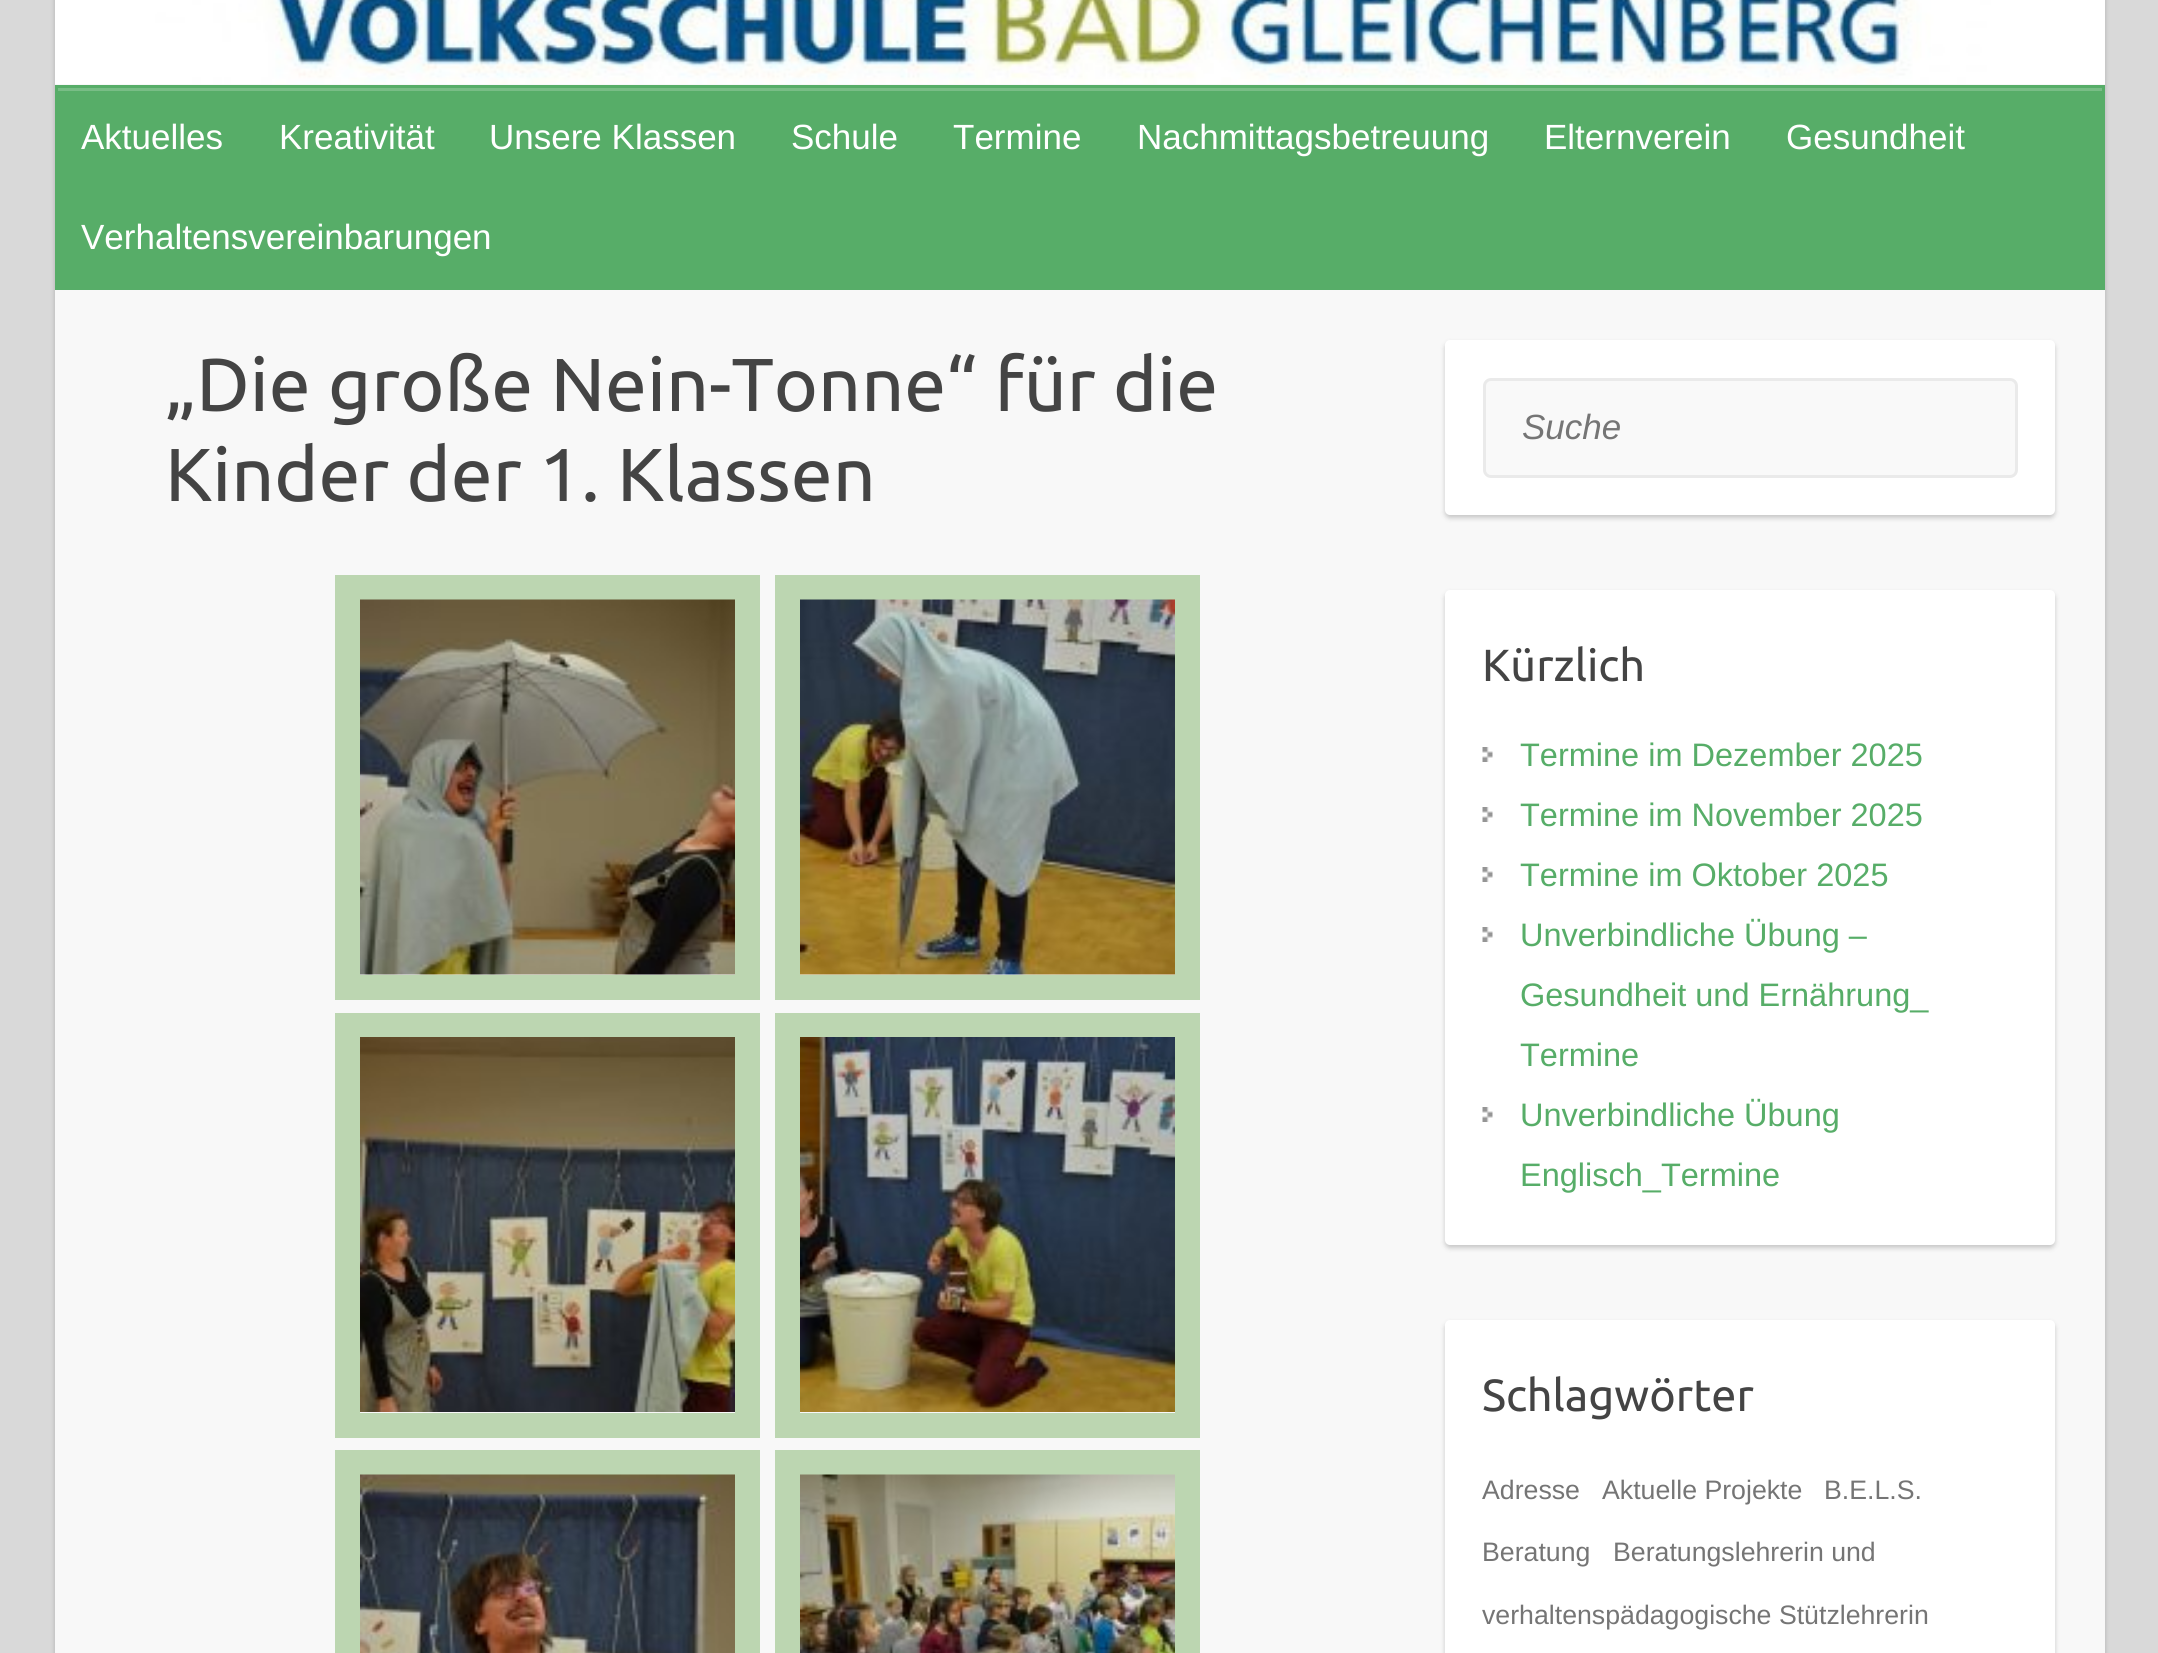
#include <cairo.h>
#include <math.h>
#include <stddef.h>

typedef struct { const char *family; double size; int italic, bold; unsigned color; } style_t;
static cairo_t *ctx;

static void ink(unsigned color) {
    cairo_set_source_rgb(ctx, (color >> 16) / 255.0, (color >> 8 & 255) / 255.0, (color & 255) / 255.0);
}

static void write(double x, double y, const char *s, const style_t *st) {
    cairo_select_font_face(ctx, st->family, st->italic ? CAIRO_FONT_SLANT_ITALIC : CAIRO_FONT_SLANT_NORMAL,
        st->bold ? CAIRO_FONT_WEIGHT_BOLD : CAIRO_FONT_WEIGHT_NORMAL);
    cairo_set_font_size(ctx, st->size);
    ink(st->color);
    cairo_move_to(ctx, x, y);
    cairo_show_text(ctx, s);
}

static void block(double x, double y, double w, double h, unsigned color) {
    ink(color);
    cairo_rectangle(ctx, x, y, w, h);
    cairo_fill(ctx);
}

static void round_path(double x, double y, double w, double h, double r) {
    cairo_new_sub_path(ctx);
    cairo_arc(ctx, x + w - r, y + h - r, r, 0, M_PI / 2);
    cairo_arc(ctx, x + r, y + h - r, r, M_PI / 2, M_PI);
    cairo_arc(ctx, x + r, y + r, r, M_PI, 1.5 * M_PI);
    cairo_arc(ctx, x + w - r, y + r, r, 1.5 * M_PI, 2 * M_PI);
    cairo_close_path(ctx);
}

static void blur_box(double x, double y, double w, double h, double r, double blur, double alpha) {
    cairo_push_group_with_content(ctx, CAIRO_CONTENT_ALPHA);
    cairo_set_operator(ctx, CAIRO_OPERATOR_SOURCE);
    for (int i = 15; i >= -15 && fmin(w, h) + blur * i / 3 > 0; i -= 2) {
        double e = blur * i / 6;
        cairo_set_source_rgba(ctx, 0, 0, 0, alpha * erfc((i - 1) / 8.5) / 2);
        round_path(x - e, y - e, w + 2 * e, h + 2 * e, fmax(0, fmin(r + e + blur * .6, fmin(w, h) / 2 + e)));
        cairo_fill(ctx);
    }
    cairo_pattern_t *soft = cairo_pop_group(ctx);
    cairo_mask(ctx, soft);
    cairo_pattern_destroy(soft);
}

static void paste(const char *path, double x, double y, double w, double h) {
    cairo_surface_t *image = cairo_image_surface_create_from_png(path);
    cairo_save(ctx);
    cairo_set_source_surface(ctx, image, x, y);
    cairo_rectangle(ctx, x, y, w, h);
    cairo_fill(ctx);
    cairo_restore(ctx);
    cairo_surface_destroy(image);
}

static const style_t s1 = {"Liberation Sans", 35, 0, 0, 0xffffff};
static const style_t s2 = {"Ubuntu", 75, 0, 0, 0x444444};
static const style_t s3 = {"Liberation Sans", 35, 1, 0, 0x757575};
static const style_t s4 = {"Ubuntu", 45, 0, 0, 0x444444};
static const style_t s5 = {"Liberation Sans", 32.5, 0, 0, 0x57ad68};
static const style_t s6 = {"Liberation Sans", 26.7, 0, 0, 0x757575};

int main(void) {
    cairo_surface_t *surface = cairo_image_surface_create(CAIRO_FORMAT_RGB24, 2158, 1653);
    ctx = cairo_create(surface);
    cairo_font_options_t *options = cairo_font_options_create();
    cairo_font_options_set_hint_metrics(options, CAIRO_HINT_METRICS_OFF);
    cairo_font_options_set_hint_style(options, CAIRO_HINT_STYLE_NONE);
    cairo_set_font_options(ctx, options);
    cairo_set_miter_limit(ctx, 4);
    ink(0xd9d9d9);
    cairo_paint(ctx);
    ink(0x000000);
    blur_box(55, -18, 2050, 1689, 10, 2.5, 0.2);
    block(55, 84, 2050, 1569, 0xf8f8f8);
    paste("pic1.png", 55, 0, 2050, 84);
    block(58, 91, 2044, 196, 0x57ad68);
    block(58, 88, 2045, 3, 0x79bd86);
    cairo_rectangle(ctx, 56.5, 86.5, 2047, 202);
    ink(0x57ad68);
    cairo_set_line_width(ctx, 3);
    cairo_stroke(ctx);
    write(81, 149, "Aktuelles", &s1);
    write(279, 149, "Kreativität", &s1);
    write(489, 149, "Unsere Klassen", &s1);
    write(791, 149, "Schule", &s1);
    write(953, 149, "Termine", &s1);
    write(1137, 149, "Nachmittagsbetreuung", &s1);
    write(1544, 149, "Elternverein", &s1);
    write(1786, 149, "Gesundheit", &s1);
    write(81, 249, "Verhaltensvereinbarungen", &s1);
    write(165, 411, "„Die große Nein-Tonne“ für die", &s2);
    write(165, 501, "Kinder der 1. Klassen", &s2);
    cairo_rectangle(ctx, 347.5, 587.5, 400, 400);
    ink(0xbcd6b1);
    cairo_set_line_width(ctx, 25);
    cairo_stroke(ctx);
    paste("pic2.png", 360, 599, 375, 376);
    cairo_rectangle(ctx, 787.5, 587.5, 400, 400);
    cairo_stroke(ctx);
    paste("pic3.png", 800, 599, 375, 376);
    cairo_rectangle(ctx, 347.5, 1025.5, 400, 400);
    cairo_stroke(ctx);
    paste("pic4.png", 360, 1037, 375, 375);
    cairo_rectangle(ctx, 787.5, 1025.5, 400, 400);
    cairo_stroke(ctx);
    paste("pic5.png", 800, 1037, 375, 375);
    cairo_rectangle(ctx, 347.5, 1462.5, 400, 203);
    cairo_stroke(ctx);
    paste("pic6.png", 360, 1474, 375, 179);
    cairo_rectangle(ctx, 787.5, 1462.5, 400, 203);
    cairo_stroke(ctx);
    paste("pic7.png", 800, 1474, 375, 179);
    ink(0x000000);
    blur_box(1445, 343, 610, 175, 5, 2.5, 0.2);
    ink(0xffffff);
    round_path(1445, 340, 610, 175, 5);
    cairo_fill(ctx);
    ink(0xf9f9f9);
    round_path(1484.5, 379.5, 532, 97, 6.5);
    cairo_fill_preserve(ctx);
    ink(0xeaeaea);
    cairo_set_line_width(ctx, 3);
    cairo_stroke(ctx);
    write(1522, 439, "Suche", &s3);
    ink(0x000000);
    blur_box(1445, 593, 610, 655, 5, 2.5, 0.2);
    ink(0xffffff);
    round_path(1445, 590, 610, 655, 5);
    cairo_fill(ctx);
    write(1482, 681, "Kürzlich", &s4);
    paste("pic8.png", 1482, 747, 11, 15);
    write(1520, 766, "Termine im Dezember 2025", &s5);
    paste("pic8.png", 1482, 807, 11, 15);
    write(1520, 826, "Termine im November 2025", &s5);
    paste("pic8.png", 1482, 867, 11, 15);
    write(1520, 886, "Termine im Oktober 2025", &s5);
    paste("pic8.png", 1482, 927, 11, 15);
    write(1520, 946, "Unverbindliche Übung –", &s5);
    write(1520, 1006, "Gesundheit und Ernährung_", &s5);
    write(1520, 1066, "Termine", &s5);
    paste("pic8.png", 1482, 1107, 11, 15);
    write(1520, 1126, "Unverbindliche Übung", &s5);
    write(1520, 1186, "Englisch_Termine", &s5);
    ink(0x000000);
    blur_box(1445, 1323, 610, 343, 5, 2.5, 0.2);
    ink(0xffffff);
    round_path(1445, 1320, 610, 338, 5);
    cairo_fill(ctx);
    write(1482, 1411, "Schlagwörter", &s4);
    write(1482, 1499, "Adresse", &s6);
    write(1602, 1499, "Aktuelle Projekte", &s6);
    write(1824, 1499, "B.E.L.S.", &s6);
    write(1482, 1561, "Beratung", &s6);
    write(1613, 1561, "Beratungslehrerin und", &s6);
    write(1482, 1624, "verhaltenspädagogische Stützlehrerin", &s6);
    cairo_surface_write_to_png(surface, "screenshot.png");
    cairo_font_options_destroy(options);
    cairo_destroy(ctx);
    cairo_surface_destroy(surface);
    return 0;
}
